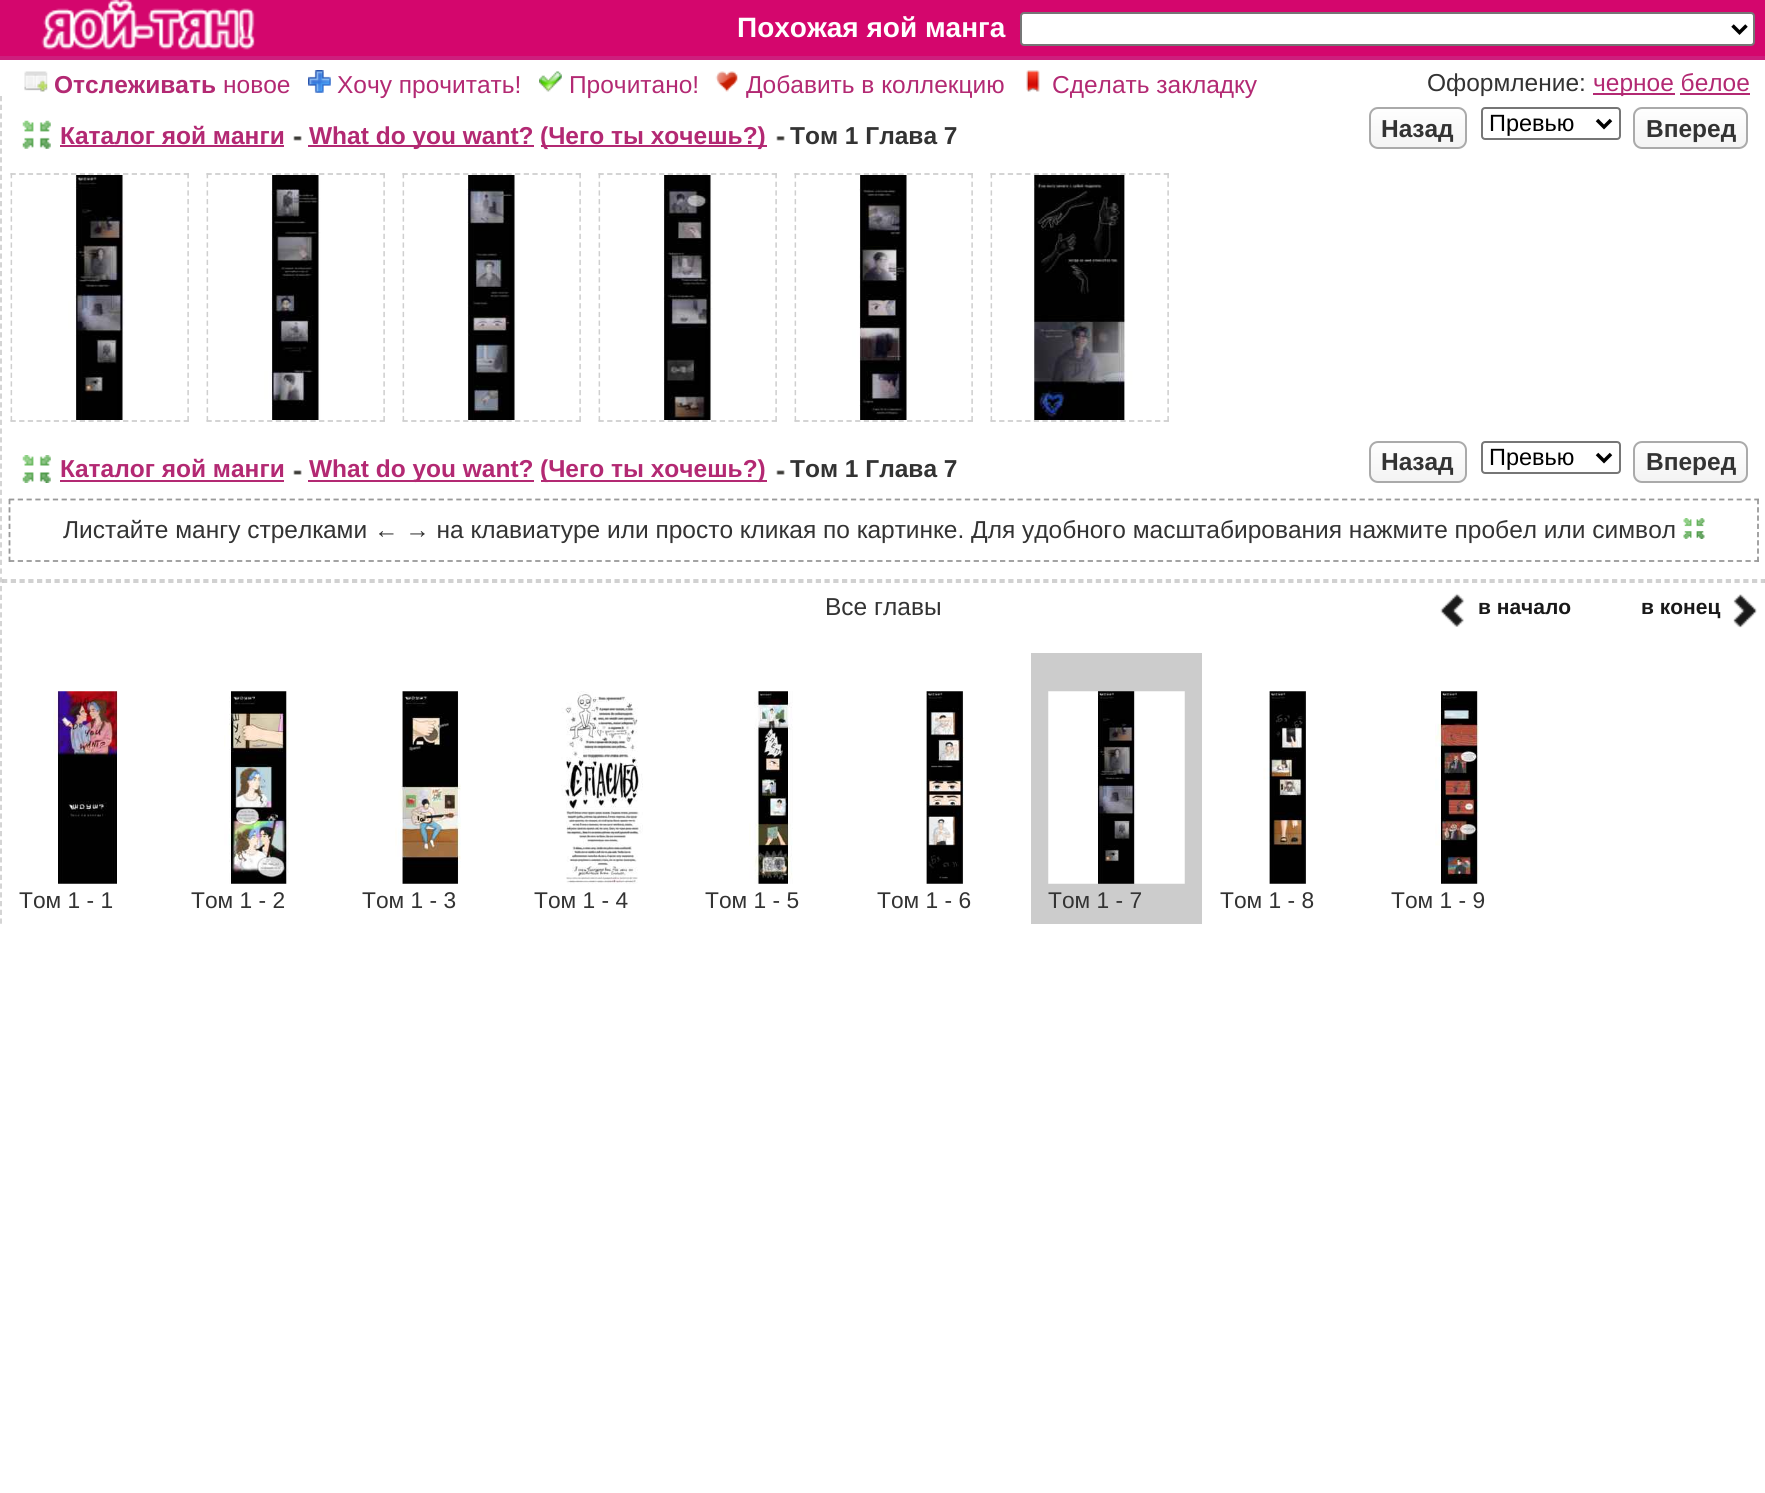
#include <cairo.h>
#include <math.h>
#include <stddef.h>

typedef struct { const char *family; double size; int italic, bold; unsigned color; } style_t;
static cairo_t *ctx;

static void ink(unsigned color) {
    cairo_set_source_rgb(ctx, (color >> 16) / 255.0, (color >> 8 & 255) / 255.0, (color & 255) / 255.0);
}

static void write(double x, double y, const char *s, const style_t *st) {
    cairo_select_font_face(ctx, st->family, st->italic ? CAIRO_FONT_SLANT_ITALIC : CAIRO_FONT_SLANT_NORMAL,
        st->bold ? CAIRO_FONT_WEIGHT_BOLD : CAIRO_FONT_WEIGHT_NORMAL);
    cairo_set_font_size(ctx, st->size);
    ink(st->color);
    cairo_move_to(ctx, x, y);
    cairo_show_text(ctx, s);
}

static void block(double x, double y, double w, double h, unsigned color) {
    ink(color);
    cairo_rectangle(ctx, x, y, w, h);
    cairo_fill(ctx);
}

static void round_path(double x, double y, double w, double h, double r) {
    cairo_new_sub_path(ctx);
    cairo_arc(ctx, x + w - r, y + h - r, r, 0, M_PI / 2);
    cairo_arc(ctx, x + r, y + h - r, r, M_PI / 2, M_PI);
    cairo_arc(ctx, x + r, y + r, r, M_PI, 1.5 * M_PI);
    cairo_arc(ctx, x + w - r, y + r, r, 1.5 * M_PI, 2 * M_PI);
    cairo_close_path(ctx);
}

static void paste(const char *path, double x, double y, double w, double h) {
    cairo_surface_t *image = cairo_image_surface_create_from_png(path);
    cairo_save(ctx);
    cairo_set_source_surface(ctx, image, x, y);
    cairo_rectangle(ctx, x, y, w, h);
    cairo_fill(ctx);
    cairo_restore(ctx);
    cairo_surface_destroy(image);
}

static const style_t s1 = {"Liberation Sans", 28, 0, 1, 0xffffff};
static const style_t s2 = {"Liberation Sans", 24.5, 0, 1, 0xb32973};
static const style_t s3 = {"Liberation Sans", 24.5, 0, 0, 0xb32973};
static const style_t s4 = {"Liberation Sans", 24.5, 0, 0, 0x333333};
static const style_t s5 = {"Liberation Sans", 24.5, 0, 1, 0x333333};
static const style_t s6 = {"Liberation Sans", 23.5, 0, 0, 0x000000};
static const style_t s7 = {"Liberation Sans", 21, 0, 1, 0x191919};
static const style_t s8 = {"Liberation Sans", 22.75, 0, 0, 0x333333};

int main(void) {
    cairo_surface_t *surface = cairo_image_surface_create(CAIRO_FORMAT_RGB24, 1765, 1493);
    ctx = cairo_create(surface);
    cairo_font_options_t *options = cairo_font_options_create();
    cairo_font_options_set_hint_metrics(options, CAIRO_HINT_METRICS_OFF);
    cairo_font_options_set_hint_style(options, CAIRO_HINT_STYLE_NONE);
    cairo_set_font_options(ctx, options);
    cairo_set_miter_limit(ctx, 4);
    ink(0xffffff);
    cairo_paint(ctx);
    block(0, 0, 1765, 56, 0xd4066d);
    block(0, 56, 1765, 4, 0xcd1e7d);
    paste("pic1.png", 41, 0, 214, 50);
    write(737, 37, "Похожая яой манга", &s1);
    round_path(1021, 13, 733, 32, 3);
    cairo_fill_preserve(ctx);
    ink(0x767676);
    cairo_stroke(ctx);
    cairo_new_path(ctx);
    cairo_move_to(ctx, 1732.5, 25.5);
    cairo_line_to(ctx, 1739.5, 32.5);
    cairo_line_to(ctx, 1746.5, 25.5);
    ink(0x000000);
    cairo_set_line_width(ctx, 3.5);
    cairo_stroke(ctx);
    paste("pic2.png", 24, 71, 24, 21);
    write(54, 93, "Отслеживать", &s2);
    write(223, 93, "новое", &s3);
    paste("pic3.png", 308, 70, 23, 23);
    write(337, 93, "Хочу прочитать!", &s3);
    paste("pic4.png", 539, 71, 23, 21);
    write(569, 93, "Прочитано!", &s3);
    paste("pic5.png", 715, 71, 23, 21);
    write(746, 93, "Добавить в коллекцию", &s3);
    paste("pic6.png", 1026, 70, 14, 22);
    write(1052, 93, "Сделать закладку", &s3);
    write(1427, 91, "Оформление:", &s4);
    block(1593, 93, 82, 2, 0xb32973);
    write(1593, 91, "черное белое", &s3);
    block(1680, 93, 70, 2, 0xb32973);
    cairo_new_path(ctx);
    cairo_move_to(ctx, 1, 96);
    cairo_line_to(ctx, 1, 924);
    ink(0xcfcfcf);
    cairo_set_line_width(ctx, 1.8);
    cairo_set_dash(ctx, (double[]){5.25, 3.5}, 2, 0);
    cairo_stroke(ctx);
    paste("pic7.png", 22, 120, 29, 29);
    write(60, 144, "Каталог яой манги", &s2);
    block(60, 145, 224, 2, 0xb32973);
    paste("pic8.png", 293, 136, 9, 5);
    block(308, 145, 226, 2, 0xb32973);
    write(309, 144, "What do you want?", &s2);
    block(541, 145, 226, 2, 0xb32973);
    write(540, 144, "(Чего ты хочешь?)", &s2);
    paste("pic8.png", 776, 136, 9, 5);
    write(790, 144, "Том 1 Глава 7", &s5);
    paste("pic9.png", 1369, 107, 97, 40);
    round_path(1370, 108, 96, 40, 8);
    ink(0xaaaaaa);
    cairo_set_line_width(ctx, 2);
    cairo_set_dash(ctx, NULL, 0, 0);
    cairo_stroke(ctx);
    write(1381, 137, "Назад", &s5);
    round_path(1482, 108, 138, 31, 3);
    ink(0x767676);
    cairo_stroke(ctx);
    cairo_new_path(ctx);
    cairo_move_to(ctx, 1597, 120);
    cairo_line_to(ctx, 1604, 127);
    cairo_line_to(ctx, 1611, 120);
    ink(0x000000);
    cairo_set_line_width(ctx, 3.5);
    cairo_stroke(ctx);
    write(1489, 131, "Превью", &s6);
    paste("pic10.png", 1633, 107, 115, 40);
    round_path(1634, 108, 113, 40, 8);
    ink(0xaaaaaa);
    cairo_set_line_width(ctx, 2);
    cairo_stroke(ctx);
    write(1646, 137, "Вперед", &s5);
    cairo_new_path(ctx);
    cairo_move_to(ctx, 10.5, 174);
    cairo_line_to(ctx, 189, 174);
    ink(0xcfcfcf);
    cairo_set_line_width(ctx, 1.8);
    cairo_set_dash(ctx, (double[]){5.25, 3.41}, 2, 0);
    cairo_stroke(ctx);
    cairo_new_path(ctx);
    cairo_move_to(ctx, 188, 173);
    cairo_line_to(ctx, 188, 422);
    cairo_set_dash(ctx, (double[]){5.25, 3.43}, 2, 0);
    cairo_stroke(ctx);
    cairo_new_path(ctx);
    cairo_move_to(ctx, 10.5, 421);
    cairo_line_to(ctx, 189, 421);
    cairo_set_dash(ctx, (double[]){5.25, 3.41}, 2, 0);
    cairo_stroke(ctx);
    cairo_new_path(ctx);
    cairo_move_to(ctx, 11.5, 173);
    cairo_line_to(ctx, 11.5, 422);
    cairo_set_dash(ctx, (double[]){5.25, 3.43}, 2, 0);
    cairo_stroke(ctx);
    cairo_new_path(ctx);
    cairo_move_to(ctx, 206.5, 174);
    cairo_line_to(ctx, 385, 174);
    cairo_set_dash(ctx, (double[]){5.25, 3.41}, 2, 0);
    cairo_stroke(ctx);
    cairo_new_path(ctx);
    cairo_move_to(ctx, 384, 173);
    cairo_line_to(ctx, 384, 422);
    cairo_set_dash(ctx, (double[]){5.25, 3.43}, 2, 0);
    cairo_stroke(ctx);
    cairo_new_path(ctx);
    cairo_move_to(ctx, 206.5, 421);
    cairo_line_to(ctx, 385, 421);
    cairo_set_dash(ctx, (double[]){5.25, 3.41}, 2, 0);
    cairo_stroke(ctx);
    cairo_new_path(ctx);
    cairo_move_to(ctx, 207.5, 173);
    cairo_line_to(ctx, 207.5, 422);
    cairo_set_dash(ctx, (double[]){5.25, 3.43}, 2, 0);
    cairo_stroke(ctx);
    cairo_new_path(ctx);
    cairo_move_to(ctx, 402.5, 174);
    cairo_line_to(ctx, 581, 174);
    cairo_set_dash(ctx, (double[]){5.25, 3.41}, 2, 0);
    cairo_stroke(ctx);
    cairo_new_path(ctx);
    cairo_move_to(ctx, 580, 173);
    cairo_line_to(ctx, 580, 422);
    cairo_set_dash(ctx, (double[]){5.25, 3.43}, 2, 0);
    cairo_stroke(ctx);
    cairo_new_path(ctx);
    cairo_move_to(ctx, 402.5, 421);
    cairo_line_to(ctx, 581, 421);
    cairo_set_dash(ctx, (double[]){5.25, 3.41}, 2, 0);
    cairo_stroke(ctx);
    cairo_new_path(ctx);
    cairo_move_to(ctx, 403.5, 173);
    cairo_line_to(ctx, 403.5, 422);
    cairo_set_dash(ctx, (double[]){5.25, 3.43}, 2, 0);
    cairo_stroke(ctx);
    cairo_new_path(ctx);
    cairo_move_to(ctx, 598.5, 174);
    cairo_line_to(ctx, 777, 174);
    cairo_set_dash(ctx, (double[]){5.25, 3.41}, 2, 0);
    cairo_stroke(ctx);
    cairo_new_path(ctx);
    cairo_move_to(ctx, 776, 173);
    cairo_line_to(ctx, 776, 422);
    cairo_set_dash(ctx, (double[]){5.25, 3.43}, 2, 0);
    cairo_stroke(ctx);
    cairo_new_path(ctx);
    cairo_move_to(ctx, 598.5, 421);
    cairo_line_to(ctx, 777, 421);
    cairo_set_dash(ctx, (double[]){5.25, 3.41}, 2, 0);
    cairo_stroke(ctx);
    cairo_new_path(ctx);
    cairo_move_to(ctx, 599.5, 173);
    cairo_line_to(ctx, 599.5, 422);
    cairo_set_dash(ctx, (double[]){5.25, 3.43}, 2, 0);
    cairo_stroke(ctx);
    cairo_new_path(ctx);
    cairo_move_to(ctx, 794.5, 174);
    cairo_line_to(ctx, 973, 174);
    cairo_set_dash(ctx, (double[]){5.25, 3.41}, 2, 0);
    cairo_stroke(ctx);
    cairo_new_path(ctx);
    cairo_move_to(ctx, 972, 173);
    cairo_line_to(ctx, 972, 422);
    cairo_set_dash(ctx, (double[]){5.25, 3.43}, 2, 0);
    cairo_stroke(ctx);
    cairo_new_path(ctx);
    cairo_move_to(ctx, 794.5, 421);
    cairo_line_to(ctx, 973, 421);
    cairo_set_dash(ctx, (double[]){5.25, 3.41}, 2, 0);
    cairo_stroke(ctx);
    cairo_new_path(ctx);
    cairo_move_to(ctx, 795.5, 173);
    cairo_line_to(ctx, 795.5, 422);
    cairo_set_dash(ctx, (double[]){5.25, 3.43}, 2, 0);
    cairo_stroke(ctx);
    cairo_new_path(ctx);
    cairo_move_to(ctx, 990.5, 174);
    cairo_line_to(ctx, 1169, 174);
    cairo_set_dash(ctx, (double[]){5.25, 3.41}, 2, 0);
    cairo_stroke(ctx);
    paste("pic11.png", 12, 175, 176, 245);
    paste("pic12.png", 208, 175, 176, 245);
    paste("pic13.png", 404, 175, 176, 245);
    paste("pic14.png", 600, 175, 176, 245);
    paste("pic15.png", 796, 175, 176, 245);
    cairo_new_path(ctx);
    cairo_move_to(ctx, 1168, 173);
    cairo_line_to(ctx, 1168, 422);
    cairo_set_dash(ctx, (double[]){5.25, 3.43}, 2, 0);
    cairo_stroke(ctx);
    cairo_new_path(ctx);
    cairo_move_to(ctx, 990.5, 421);
    cairo_line_to(ctx, 1169, 421);
    cairo_set_dash(ctx, (double[]){5.25, 3.41}, 2, 0);
    cairo_stroke(ctx);
    cairo_new_path(ctx);
    cairo_move_to(ctx, 991.5, 173);
    cairo_line_to(ctx, 991.5, 422);
    cairo_set_dash(ctx, (double[]){5.25, 3.43}, 2, 0);
    cairo_stroke(ctx);
    paste("pic16.png", 992, 175, 176, 245);
    paste("pic17.png", 22, 455, 29, 28);
    write(60, 477, "Каталог яой манги", &s2);
    block(60, 480, 224, 2, 0xb32973);
    paste("pic18.png", 293, 470, 9, 5);
    block(308, 480, 226, 2, 0xb32973);
    write(309, 477, "What do you want?", &s2);
    block(541, 480, 226, 2, 0xb32973);
    write(540, 477, "(Чего ты хочешь?)", &s2);
    paste("pic18.png", 776, 470, 9, 5);
    write(790, 477, "Том 1 Глава 7", &s5);
    paste("pic19.png", 1369, 443, 97, 40);
    round_path(1370, 442, 96, 40, 8);
    ink(0xaaaaaa);
    cairo_set_line_width(ctx, 2);
    cairo_set_dash(ctx, NULL, 0, 0);
    cairo_stroke(ctx);
    write(1381, 470, "Назад", &s5);
    round_path(1482, 442, 138, 31, 3);
    ink(0x767676);
    cairo_stroke(ctx);
    cairo_new_path(ctx);
    cairo_move_to(ctx, 1597, 454);
    cairo_line_to(ctx, 1604, 461);
    cairo_line_to(ctx, 1611, 454);
    ink(0x000000);
    cairo_set_line_width(ctx, 3.5);
    cairo_stroke(ctx);
    write(1489, 465, "Превью", &s6);
    paste("pic20.png", 1633, 443, 115, 40);
    round_path(1634, 442, 113, 40, 8);
    ink(0xaaaaaa);
    cairo_set_line_width(ctx, 2);
    cairo_stroke(ctx);
    write(1646, 470, "Вперед", &s5);
    cairo_new_path(ctx);
    cairo_move_to(ctx, 9, 499.5);
    cairo_line_to(ctx, 1759, 499.5);
    ink(0x999999);
    cairo_set_line_width(ctx, 1.8);
    cairo_set_dash(ctx, (double[]){5.25, 3.52}, 2, 0);
    cairo_stroke(ctx);
    cairo_new_path(ctx);
    cairo_move_to(ctx, 1758, 499);
    cairo_line_to(ctx, 1758, 562);
    cairo_set_dash(ctx, (double[]){5.25, 2.99}, 2, 0);
    cairo_stroke(ctx);
    cairo_new_path(ctx);
    cairo_move_to(ctx, 9, 561);
    cairo_line_to(ctx, 1759, 561);
    cairo_set_dash(ctx, (double[]){5.25, 3.52}, 2, 0);
    cairo_stroke(ctx);
    cairo_new_path(ctx);
    cairo_move_to(ctx, 9.5, 499);
    cairo_line_to(ctx, 9.5, 562);
    cairo_set_dash(ctx, (double[]){5.25, 2.99}, 2, 0);
    cairo_stroke(ctx);
    write(63, 538, "Листайте мангу стрелками ← → на клавиатуре или просто кликая по картинке. Для удобного масштабирования нажмите пробел или символ", &s4);
    paste("pic21.png", 1683, 518, 22, 21);
    cairo_new_path(ctx);
    cairo_move_to(ctx, 2, 580);
    cairo_line_to(ctx, 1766, 580);
    ink(0xcccccc);
    cairo_set_dash(ctx, (double[]){5.25, 3.5}, 2, 0);
    cairo_stroke(ctx);
    block(1764, 579, 1, 4, 0xcccccc);
    cairo_new_path(ctx);
    cairo_move_to(ctx, 2, 582);
    cairo_line_to(ctx, 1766, 582);
    cairo_stroke(ctx);
    block(2, 579, 2, 4, 0xcccccc);
    write(825, 615, "Все главы", &s4);
    paste("pic22.png", 1440, 593, 25, 34);
    write(1478, 614, "в начало", &s7);
    write(1641, 614, "в конец", &s7);
    paste("pic23.png", 1733, 594, 24, 34);
    paste("pic24.png", 53, 691, 65, 193);
    write(19, 908, "Том 1 - 1", &s8);
    paste("pic25.png", 224, 691, 65, 193);
    write(191, 908, "Том 1 - 2", &s8);
    paste("pic26.png", 395, 691, 66, 193);
    write(362, 908, "Том 1 - 3", &s8);
    paste("pic27.png", 561, 691, 82, 193);
    write(534, 908, "Том 1 - 4", &s8);
    paste("pic28.png", 749, 691, 44, 193);
    write(705, 908, "Том 1 - 5", &s8);
    paste("pic29.png", 921, 691, 43, 193);
    write(877, 908, "Том 1 - 6", &s8);
    block(1031, 653, 171, 271, 0xcccccc);
    paste("pic30.png", 1048, 691, 137, 193);
    write(1048, 908, "Том 1 - 7", &s8);
    paste("pic31.png", 1263, 691, 44, 193);
    write(1220, 908, "Том 1 - 8", &s8);
    paste("pic32.png", 1435, 691, 44, 193);
    write(1391, 908, "Том 1 - 9", &s8);
    cairo_surface_write_to_png(surface, "screenshot.png");
    cairo_font_options_destroy(options);
    cairo_destroy(ctx);
    cairo_surface_destroy(surface);
    return 0;
}
